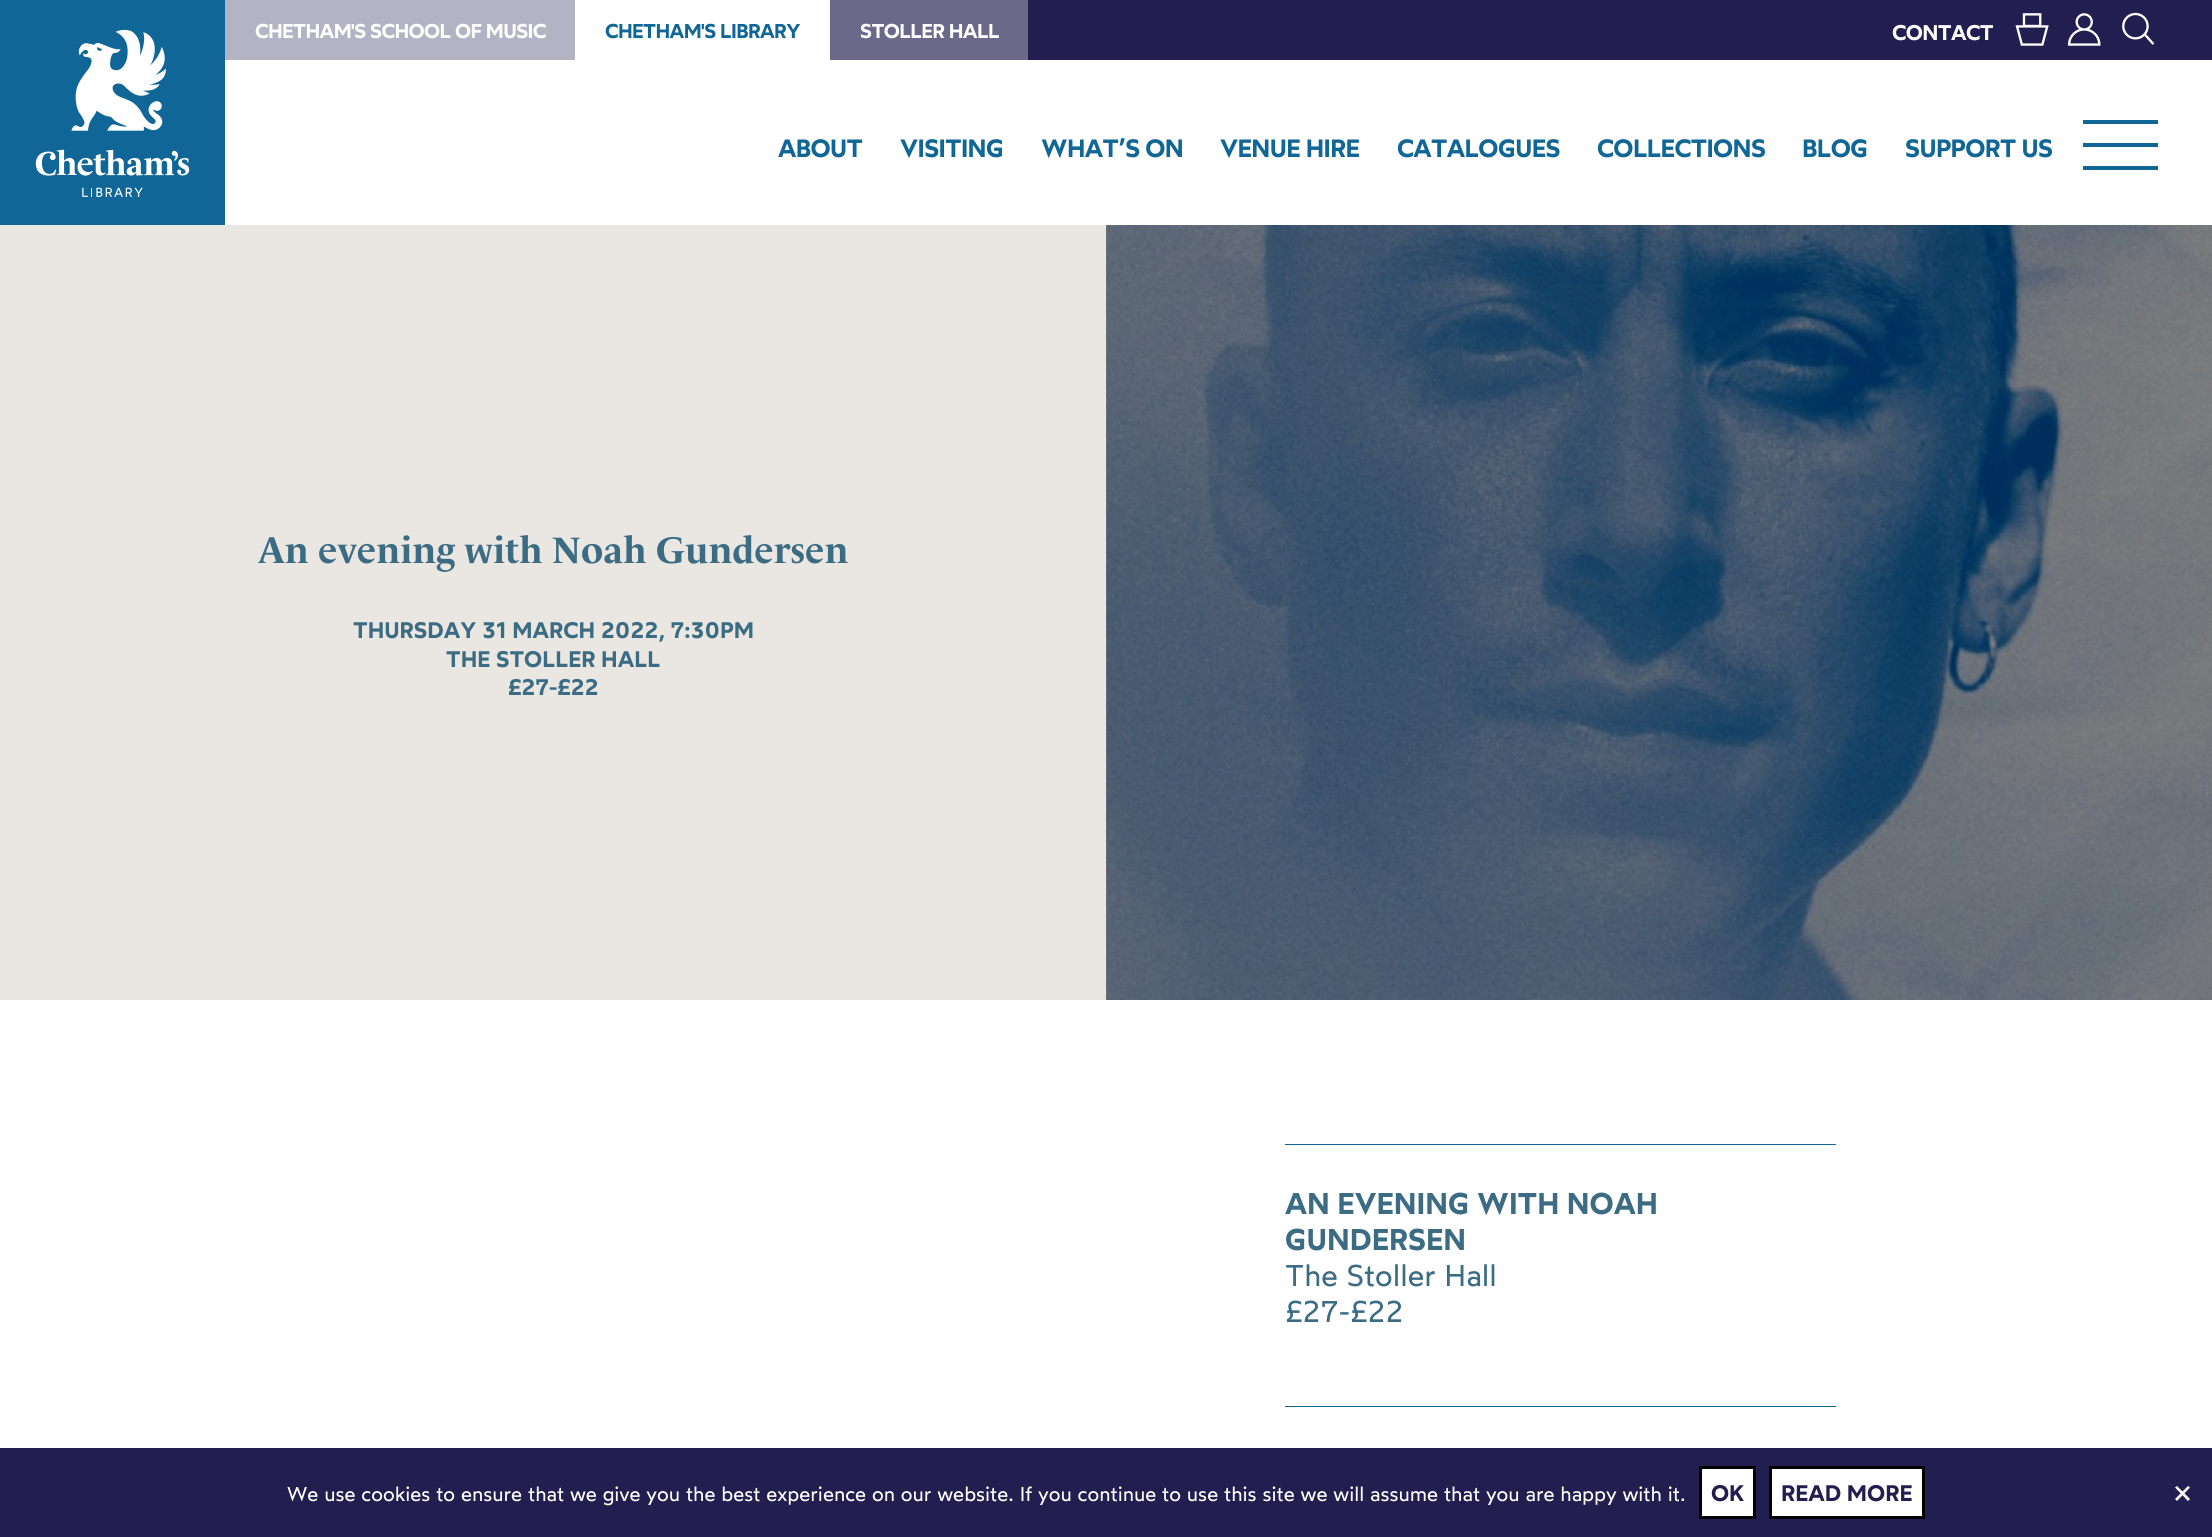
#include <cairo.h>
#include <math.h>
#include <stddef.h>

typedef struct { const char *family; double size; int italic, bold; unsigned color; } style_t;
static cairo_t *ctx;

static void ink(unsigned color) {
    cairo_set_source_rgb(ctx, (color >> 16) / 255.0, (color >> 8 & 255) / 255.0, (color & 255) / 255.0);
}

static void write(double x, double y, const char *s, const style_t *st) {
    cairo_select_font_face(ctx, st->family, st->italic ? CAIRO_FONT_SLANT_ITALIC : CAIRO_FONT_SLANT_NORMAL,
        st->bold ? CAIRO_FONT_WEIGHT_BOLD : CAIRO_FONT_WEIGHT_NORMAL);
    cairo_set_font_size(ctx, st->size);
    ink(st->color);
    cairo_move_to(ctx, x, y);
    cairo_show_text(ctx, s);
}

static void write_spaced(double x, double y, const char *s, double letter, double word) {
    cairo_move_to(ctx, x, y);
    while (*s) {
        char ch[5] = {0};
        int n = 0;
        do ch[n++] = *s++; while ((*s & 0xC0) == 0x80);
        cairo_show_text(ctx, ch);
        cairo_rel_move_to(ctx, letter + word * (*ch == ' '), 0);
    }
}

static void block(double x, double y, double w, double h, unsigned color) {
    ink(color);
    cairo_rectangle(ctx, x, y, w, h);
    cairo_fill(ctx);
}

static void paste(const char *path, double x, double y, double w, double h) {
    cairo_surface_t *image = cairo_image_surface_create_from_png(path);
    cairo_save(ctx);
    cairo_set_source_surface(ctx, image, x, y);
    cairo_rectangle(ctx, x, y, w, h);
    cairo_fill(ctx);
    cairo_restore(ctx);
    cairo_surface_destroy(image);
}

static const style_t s1 = {"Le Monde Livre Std", 37.5, 0, 1, 0x3c6c84};
static const style_t s2 = {"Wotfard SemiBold", 22.5, 0, 0, 0x3c6c84};
static const style_t s3 = {"Wotfard SemiBold", 30, 0, 0, 0x3c6c84};
static const style_t s4 = {"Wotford", 30, 0, 0, 0x3c6c84};
static const style_t s5 = {"Wotford", 20, 0, 0, 0xffffff};
static const style_t s6 = {"Wotfard SemiBold", 22.5, 0, 0, 0x231e50};

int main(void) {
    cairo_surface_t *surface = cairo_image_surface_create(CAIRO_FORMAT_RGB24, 2212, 1537);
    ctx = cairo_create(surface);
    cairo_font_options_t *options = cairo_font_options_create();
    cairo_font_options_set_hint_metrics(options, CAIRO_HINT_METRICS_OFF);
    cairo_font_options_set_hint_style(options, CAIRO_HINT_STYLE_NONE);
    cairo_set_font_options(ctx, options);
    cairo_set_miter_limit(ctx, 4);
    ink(0xffffff);
    cairo_paint(ctx);
    block(1106, 225, 1, 775, 0x808080);
    paste("pic1.png", 0, 0, 225, 225);
    block(1028, 0, 1184, 60, 0x231e50);
    block(225, 0, 350, 60, 0xb4b3c4);
    cairo_select_font_face(ctx, "Wotfard SemiBold", CAIRO_FONT_SLANT_NORMAL, CAIRO_FONT_WEIGHT_NORMAL);
    cairo_set_font_size(ctx, 20);
    ink(0xffffff);
    write_spaced(255, 38, "CHETHAM'S SCHOOL OF MUSIC", -0.6, 0);
    ink(0x106696);
    write_spaced(605, 38, "CHETHAM'S LIBRARY", -0.6, 0);
    block(830, 0, 198, 60, 0x6c688a);
    ink(0xffffff);
    write_spaced(860, 38, "STOLLER HALL", -0.6, 0);
    cairo_set_font_size(ctx, 21.25);
    write_spaced(1892, 40, "CONTACT", -0.6, 0);
    paste("pic2.png", 2015, 13, 34, 33);
    paste("pic3.png", 2067, 13, 34, 33);
    paste("pic4.png", 2122, 12, 33, 33);
    cairo_set_font_size(ctx, 25);
    ink(0x106696);
    write_spaced(778, 157, "ABOUT", -0.6, 0);
    write_spaced(900, 157, "VISITING", -0.6, 0);
    write_spaced(1041, 157, "WHAT’S ON", -0.6, 0);
    write_spaced(1220, 157, "VENUE HIRE", -0.6, 0);
    write_spaced(1397, 157, "CATALOGUES", -0.6, 0);
    write_spaced(1597, 157, "COLLECTIONS", -0.6, 0);
    write_spaced(1802, 157, "BLOG", -0.6, 0);
    write_spaced(1905, 157, "SUPPORT US", -0.6, 0);
    block(2083, 120, 75, 4, 0x106696);
    block(2083, 166, 75, 4, 0x106696);
    block(2083, 143, 75, 4, 0x106696);
    block(0, 225, 1106, 775, 0xeae6e1);
    write(258, 563, "An evening with Noah Gundersen", &s1);
    write(353, 638, "THURSDAY 31 MARCH 2022, 7:30PM", &s2);
    write(446, 667, "THE STOLLER HALL", &s2);
    write(508, 695, "£27-£22", &s2);
    paste("pic5.png", 1106, 225, 1106, 775);
    block(1285, 1144, 551, 1, 0x106696);
    block(1285, 1406, 551, 1, 0x106696);
    write(1285, 1214, "AN EVENING WITH NOAH", &s3);
    write(1285, 1250, "GUNDERSEN", &s3);
    write(1285, 1286, "The Stoller Hall", &s4);
    write(1285, 1322, "£27-£22", &s4);
    block(0, 1448, 2212, 89, 0x231e50);
    write(287, 1501, "We use cookies to ensure that we give you the best experience on our website. If you continue to use this site we will assume that you are happy with it.", &s5);
    cairo_rectangle(ctx, 1700.5, 1467.5, 54, 50);
    cairo_fill_preserve(ctx);
    ink(0x000000);
    cairo_set_line_width(ctx, 3);
    cairo_stroke(ctx);
    write(1711, 1501, "OK", &s6);
    ink(0xffffff);
    cairo_rectangle(ctx, 1770.5, 1467.5, 153, 50);
    cairo_fill_preserve(ctx);
    ink(0x000000);
    cairo_stroke(ctx);
    write(1781, 1501, "READ MORE", &s6);
    ink(0xffffff);
    cairo_new_path(ctx);
    cairo_move_to(ctx, 2188, 1486);
    cairo_line_to(ctx, 2190, 1487.5);
    cairo_line_to(ctx, 2177, 1501);
    cairo_line_to(ctx, 2175, 1499);
    cairo_close_path(ctx);
    cairo_fill(ctx);
    cairo_new_path(ctx);
    cairo_move_to(ctx, 2175, 1487.5);
    cairo_line_to(ctx, 2177, 1486);
    cairo_line_to(ctx, 2190, 1499);
    cairo_line_to(ctx, 2188, 1501);
    cairo_close_path(ctx);
    cairo_fill(ctx);
    cairo_surface_write_to_png(surface, "screenshot.png");
    cairo_font_options_destroy(options);
    cairo_destroy(ctx);
    cairo_surface_destroy(surface);
    return 0;
}
